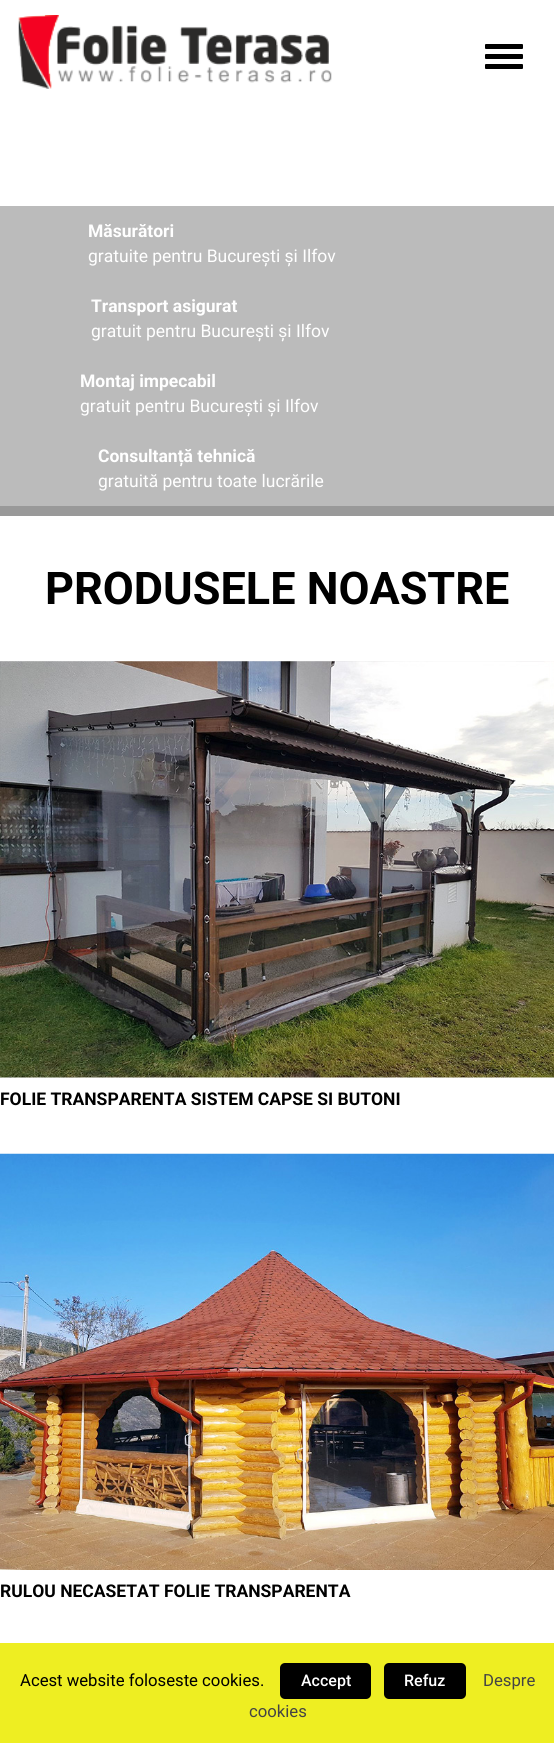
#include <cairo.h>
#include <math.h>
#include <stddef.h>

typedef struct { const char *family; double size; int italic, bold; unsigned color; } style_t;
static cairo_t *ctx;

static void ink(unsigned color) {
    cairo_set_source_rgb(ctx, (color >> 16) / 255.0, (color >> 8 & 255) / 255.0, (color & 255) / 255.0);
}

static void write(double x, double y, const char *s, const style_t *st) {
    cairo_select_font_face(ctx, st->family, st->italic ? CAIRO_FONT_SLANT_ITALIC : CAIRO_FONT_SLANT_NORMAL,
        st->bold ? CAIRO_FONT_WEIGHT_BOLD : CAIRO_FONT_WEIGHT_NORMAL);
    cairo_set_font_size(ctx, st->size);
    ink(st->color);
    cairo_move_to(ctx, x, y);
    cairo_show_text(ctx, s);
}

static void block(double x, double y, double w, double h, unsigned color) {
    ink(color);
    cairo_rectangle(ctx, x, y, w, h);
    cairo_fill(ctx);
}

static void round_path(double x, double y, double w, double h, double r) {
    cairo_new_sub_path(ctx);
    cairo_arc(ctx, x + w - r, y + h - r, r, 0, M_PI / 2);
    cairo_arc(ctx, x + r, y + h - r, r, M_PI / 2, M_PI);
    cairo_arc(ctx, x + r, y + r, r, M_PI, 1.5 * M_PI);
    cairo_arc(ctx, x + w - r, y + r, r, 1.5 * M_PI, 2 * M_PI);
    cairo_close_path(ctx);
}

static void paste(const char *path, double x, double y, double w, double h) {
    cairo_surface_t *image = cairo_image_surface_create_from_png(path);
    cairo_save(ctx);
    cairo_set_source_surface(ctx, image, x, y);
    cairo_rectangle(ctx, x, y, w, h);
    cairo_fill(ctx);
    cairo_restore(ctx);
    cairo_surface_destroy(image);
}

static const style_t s1 = {"Roboto", 17.5, 0, 1, 0xffffff};
static const style_t s2 = {"Roboto", 17.5, 0, 0, 0xffffff};
static const style_t s3 = {"Roboto", 45, 0, 1, 0x000000};
static const style_t s4 = {"Roboto", 17.5, 0, 1, 0x000000};
static const style_t s5 = {"Roboto", 16.7, 0, 0, 0x000000};
static const style_t s6 = {"Roboto Medium", 16, 0, 0, 0xffffff};
static const style_t s7 = {"Roboto", 16.7, 0, 0, 0x444444};

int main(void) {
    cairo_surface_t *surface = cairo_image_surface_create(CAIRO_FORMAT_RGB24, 554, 1743);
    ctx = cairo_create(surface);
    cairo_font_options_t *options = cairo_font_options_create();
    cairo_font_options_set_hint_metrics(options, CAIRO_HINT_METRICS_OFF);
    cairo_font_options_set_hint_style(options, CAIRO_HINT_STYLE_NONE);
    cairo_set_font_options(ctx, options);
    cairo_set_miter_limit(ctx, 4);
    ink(0xffffff);
    cairo_paint(ctx);
    paste("pic1.png", 18, 15, 314, 74);
    ink(0x000000);
    round_path(485, 44, 38, 5, 1);
    cairo_fill(ctx);
    round_path(485, 54, 38, 5, 1);
    cairo_fill(ctx);
    round_path(485, 64, 38, 5, 1);
    cairo_fill(ctx);
    block(0, 206, 554, 300, 0xbbbbbb);
    block(0, 506, 554, 10, 0x999999);
    write(88, 237, "Măsurători", &s1);
    write(88, 262, "gratuite pentru București și Ilfov", &s2);
    write(91, 312, "Transport asigurat", &s1);
    write(91, 337, "gratuit pentru București și Ilfov", &s2);
    write(80, 387, "Montaj impecabil", &s1);
    write(80, 412, "gratuit pentru București și Ilfov", &s2);
    write(98, 462, "Consultanță tehnică", &s1);
    write(98, 487, "gratuită pentru toate lucrările", &s2);
    write(45, 604, "PRODUSELE NOASTRE", &s3);
    paste("pic2.png", 0, 661, 554, 417);
    write(0, 1105, "FOLIE TRANSPARENTA SISTEM CAPSE SI BUTONI", &s4);
    paste("pic3.png", 0, 1153, 554, 417);
    write(0, 1597, "RULOU NECASETAT FOLIE TRANSPARENTA", &s4);
    block(0, 1643, 554, 100, 0xeeee22);
    write(20, 1686, "Acest website foloseste cookies.", &s5);
    round_path(280, 1663, 91, 36, 5);
    cairo_fill(ctx);
    write(301, 1686, "Accept", &s6);
    ink(0x000000);
    round_path(384, 1663, 82, 36, 5);
    cairo_fill(ctx);
    write(404, 1686, "Refuz", &s6);
    write(483, 1686, "Despre", &s7);
    write(249, 1717, "cookies", &s7);
    cairo_surface_write_to_png(surface, "screenshot.png");
    cairo_font_options_destroy(options);
    cairo_destroy(ctx);
    cairo_surface_destroy(surface);
    return 0;
}
